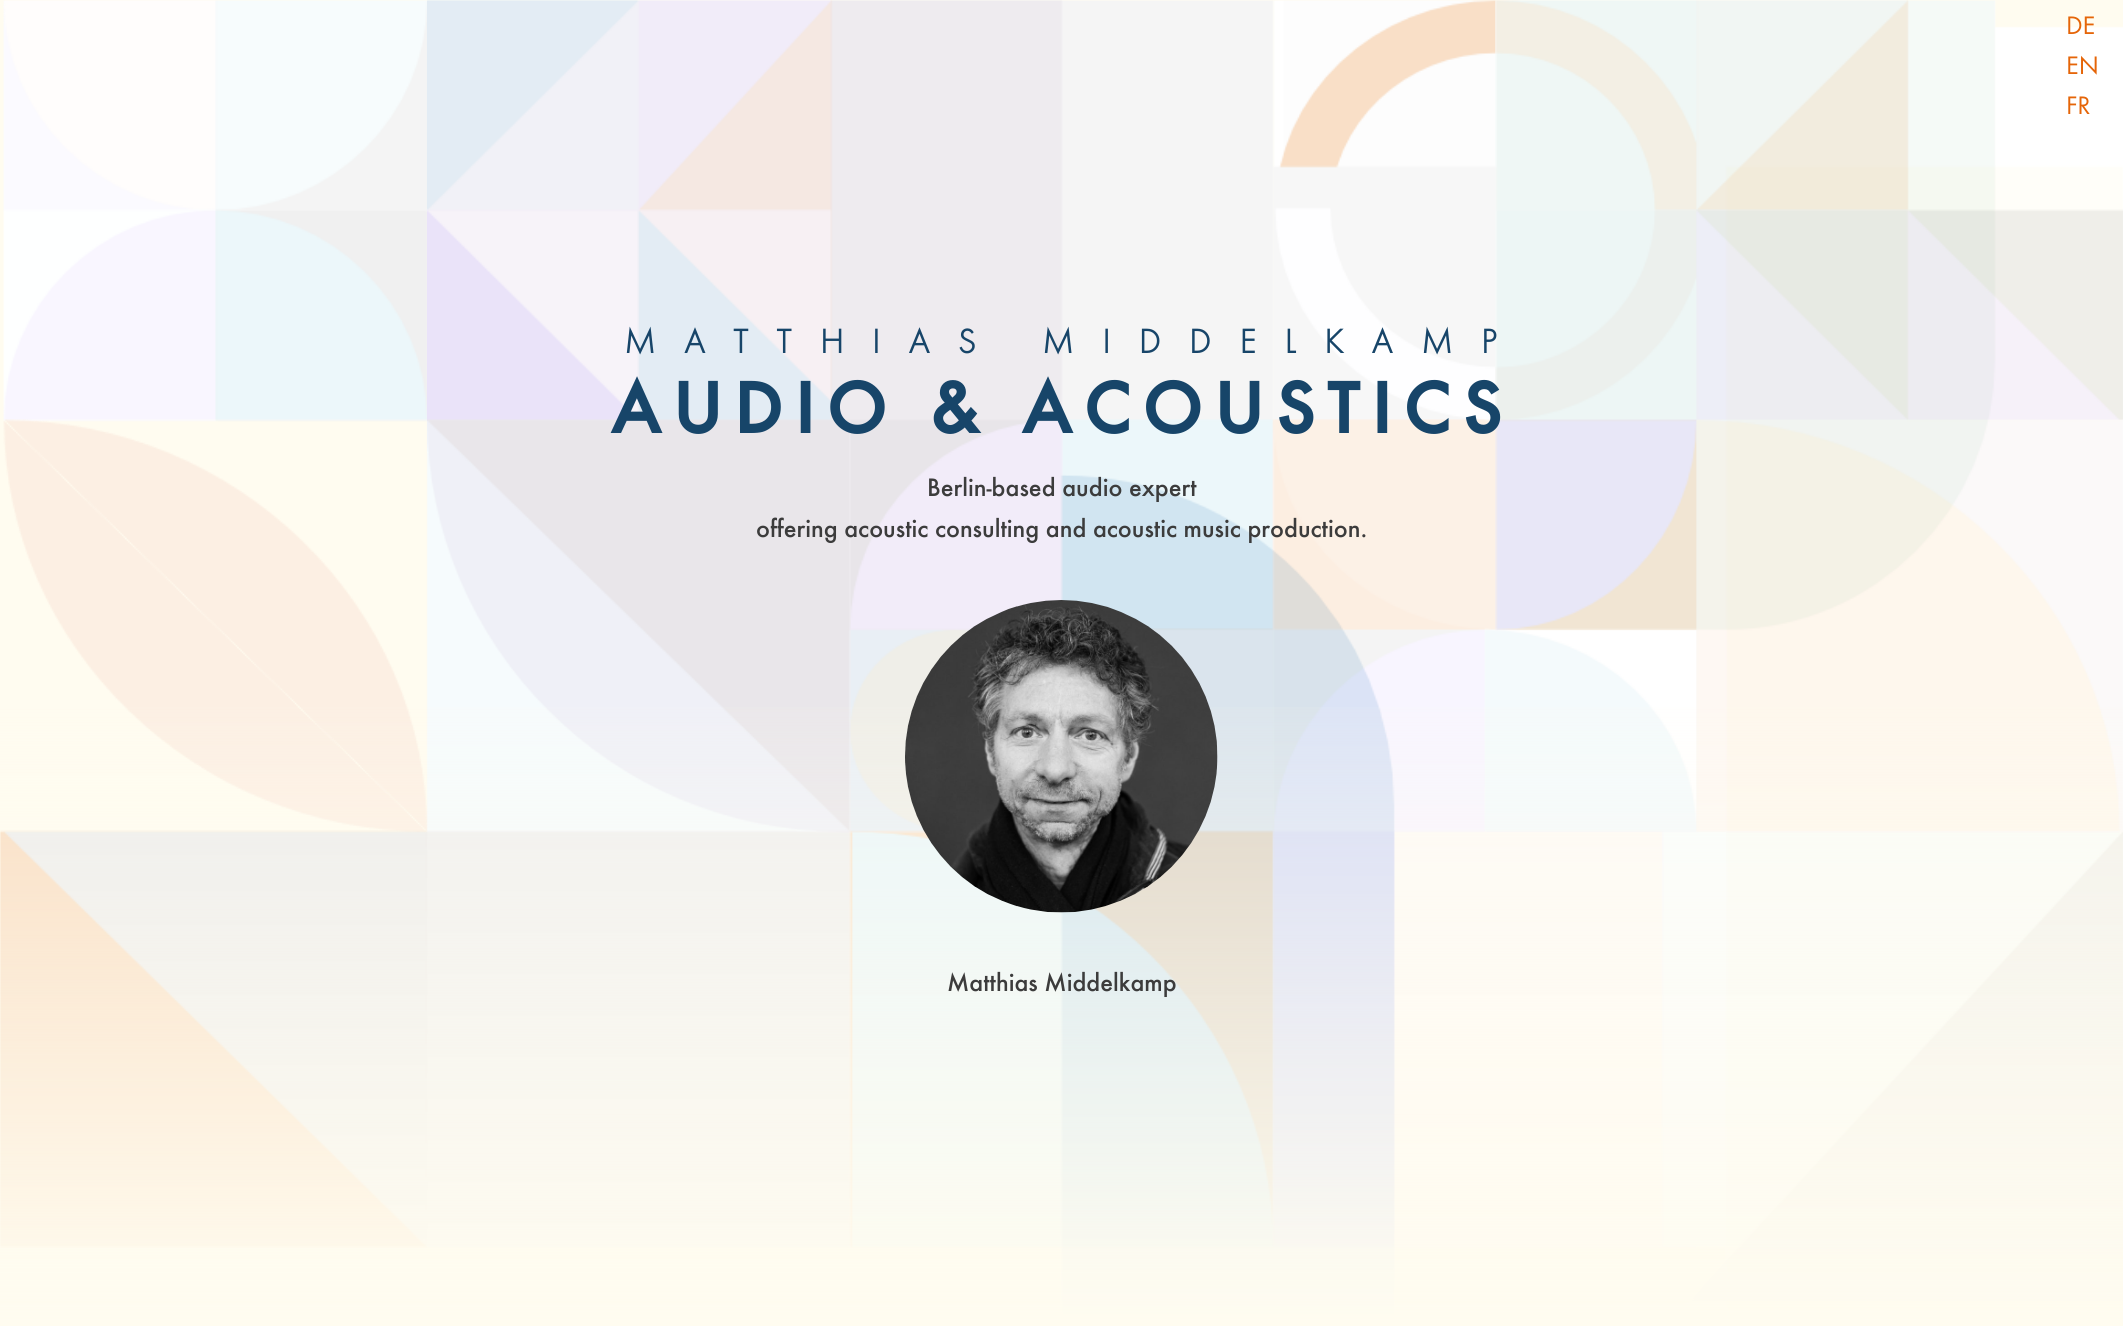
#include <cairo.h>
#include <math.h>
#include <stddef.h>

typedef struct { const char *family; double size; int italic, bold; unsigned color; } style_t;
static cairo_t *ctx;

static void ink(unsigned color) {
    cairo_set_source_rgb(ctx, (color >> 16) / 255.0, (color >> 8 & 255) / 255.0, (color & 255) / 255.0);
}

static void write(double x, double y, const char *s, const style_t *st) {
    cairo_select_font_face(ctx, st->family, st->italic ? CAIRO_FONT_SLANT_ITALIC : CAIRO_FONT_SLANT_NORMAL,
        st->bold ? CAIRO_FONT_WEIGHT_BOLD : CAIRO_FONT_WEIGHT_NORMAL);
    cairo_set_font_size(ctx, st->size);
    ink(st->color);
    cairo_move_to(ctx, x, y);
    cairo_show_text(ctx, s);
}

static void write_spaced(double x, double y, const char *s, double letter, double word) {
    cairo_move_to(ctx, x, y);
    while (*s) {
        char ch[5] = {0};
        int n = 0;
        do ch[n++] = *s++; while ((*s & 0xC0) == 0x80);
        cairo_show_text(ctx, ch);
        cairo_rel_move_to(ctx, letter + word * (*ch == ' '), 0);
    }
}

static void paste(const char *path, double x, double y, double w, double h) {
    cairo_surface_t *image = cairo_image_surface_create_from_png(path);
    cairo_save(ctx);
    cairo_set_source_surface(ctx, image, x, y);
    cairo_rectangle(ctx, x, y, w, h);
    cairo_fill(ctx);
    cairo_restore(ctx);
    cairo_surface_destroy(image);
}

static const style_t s1 = {"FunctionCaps", 26.25, 0, 0, 0xe56508};
static const style_t s2 = {"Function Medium", 26.25, 0, 0, 0x3c3c3c};

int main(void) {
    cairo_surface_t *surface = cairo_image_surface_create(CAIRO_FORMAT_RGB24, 2123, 1326);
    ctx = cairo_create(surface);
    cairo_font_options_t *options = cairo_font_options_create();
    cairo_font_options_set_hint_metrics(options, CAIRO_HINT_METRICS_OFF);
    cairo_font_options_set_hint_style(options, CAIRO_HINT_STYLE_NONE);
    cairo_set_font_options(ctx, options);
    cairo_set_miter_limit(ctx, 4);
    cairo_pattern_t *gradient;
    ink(0xfffcf0);
    cairo_paint(ctx);
    paste("pic1.png", 0, 0, 2123, 1322);
    write(2066, 34, "DE", &s1);
    write(2066, 74, "EN", &s1);
    write(2066, 114, "FR", &s1);
    cairo_select_font_face(ctx, "Function", CAIRO_FONT_SLANT_NORMAL, CAIRO_FONT_WEIGHT_BOLD);
    cairo_set_font_size(ctx, 35);
    ink(0x174569);
    write_spaced(624, 353, "MATTHIAS MIDDELKAMP", 28.75, 0);
    cairo_select_font_face(ctx, "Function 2", CAIRO_FONT_SLANT_NORMAL, CAIRO_FONT_WEIGHT_BOLD);
    cairo_set_font_size(ctx, 75);
    write_spaced(611, 433, "AUDIO & ACOUSTICS", 12.5, 0);
    write(927, 496, "Berlin-based audio expert", &s2);
    write(756, 537, "offering acoustic consulting and acoustic music production.", &s2);
    gradient = cairo_pattern_create_linear(1062, 664, 1062, 1326);
    cairo_pattern_add_color_stop_rgba(gradient, 0, 1, 0.988, 0.941, 0);
    cairo_pattern_add_color_stop_rgba(gradient, 1, 1, 0.988, 0.941, 1);
    cairo_set_source(ctx, gradient);
    cairo_pattern_destroy(gradient);
    cairo_rectangle(ctx, 0, 707, 2123, 615);
    cairo_fill(ctx);
    paste("pic2.png", 905, 600, 313, 313);
    write(947, 991, "Matthias Middelkamp", &s2);
    cairo_surface_write_to_png(surface, "screenshot.png");
    cairo_font_options_destroy(options);
    cairo_destroy(ctx);
    cairo_surface_destroy(surface);
    return 0;
}
